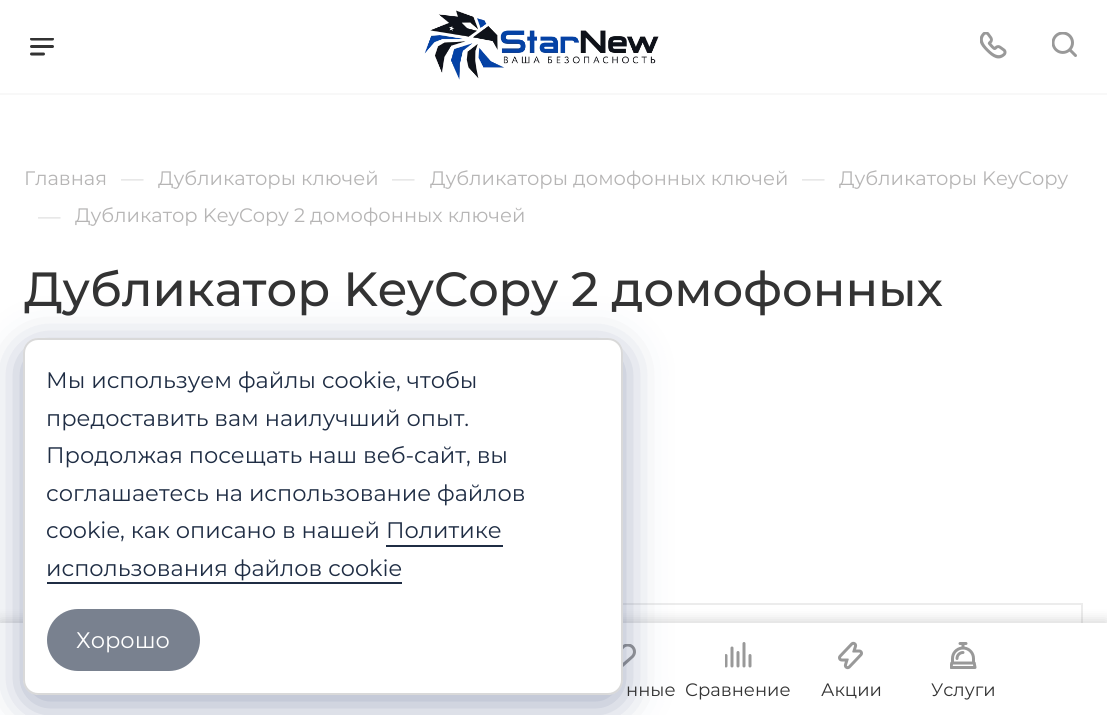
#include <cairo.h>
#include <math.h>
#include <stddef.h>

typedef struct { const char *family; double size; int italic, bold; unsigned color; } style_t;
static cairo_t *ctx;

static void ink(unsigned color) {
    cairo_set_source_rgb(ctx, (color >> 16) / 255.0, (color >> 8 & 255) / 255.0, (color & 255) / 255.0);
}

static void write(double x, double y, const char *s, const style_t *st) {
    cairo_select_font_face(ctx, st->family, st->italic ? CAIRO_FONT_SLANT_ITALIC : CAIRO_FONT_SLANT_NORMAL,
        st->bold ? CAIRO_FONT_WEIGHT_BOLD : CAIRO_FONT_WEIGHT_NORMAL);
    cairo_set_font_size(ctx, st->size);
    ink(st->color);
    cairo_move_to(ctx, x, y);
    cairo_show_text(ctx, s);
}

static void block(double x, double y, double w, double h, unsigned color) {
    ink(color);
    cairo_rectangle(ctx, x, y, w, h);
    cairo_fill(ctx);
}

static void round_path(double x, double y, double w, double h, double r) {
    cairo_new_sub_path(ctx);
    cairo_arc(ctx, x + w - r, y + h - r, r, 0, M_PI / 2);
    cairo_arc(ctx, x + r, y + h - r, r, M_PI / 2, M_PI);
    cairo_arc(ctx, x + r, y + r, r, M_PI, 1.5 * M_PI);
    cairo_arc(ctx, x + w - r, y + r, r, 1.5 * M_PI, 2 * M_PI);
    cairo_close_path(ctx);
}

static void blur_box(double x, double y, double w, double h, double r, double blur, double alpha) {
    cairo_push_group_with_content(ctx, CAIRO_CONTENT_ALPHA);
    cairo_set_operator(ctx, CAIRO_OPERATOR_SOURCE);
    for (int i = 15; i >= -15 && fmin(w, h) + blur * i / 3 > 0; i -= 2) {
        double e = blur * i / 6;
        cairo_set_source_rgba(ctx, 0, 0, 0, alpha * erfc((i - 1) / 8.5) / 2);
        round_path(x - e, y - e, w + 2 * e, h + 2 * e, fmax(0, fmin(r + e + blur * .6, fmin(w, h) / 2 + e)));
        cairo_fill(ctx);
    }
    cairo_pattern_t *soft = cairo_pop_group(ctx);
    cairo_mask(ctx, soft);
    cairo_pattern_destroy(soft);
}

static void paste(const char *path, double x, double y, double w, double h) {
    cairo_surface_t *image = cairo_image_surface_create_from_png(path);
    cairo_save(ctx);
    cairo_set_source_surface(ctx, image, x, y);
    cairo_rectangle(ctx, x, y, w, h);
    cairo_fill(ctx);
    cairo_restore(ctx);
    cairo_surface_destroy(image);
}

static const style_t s1 = {"Montserrat", 19.5, 0, 0, 0xb6b5b5};
static const style_t s2 = {"Montserrat", 22.5, 0, 0, 0xdddddd};
static const style_t s3 = {"Montserrat Medium", 48, 0, 0, 0x333333};
static const style_t s4 = {"Montserrat", 22.5, 0, 0, 0x1f2d44};
static const style_t s5 = {"Montserrat", 22.5, 0, 0, 0xffffff};
static const style_t s6 = {"Montserrat", 18, 0, 0, 0x333333};

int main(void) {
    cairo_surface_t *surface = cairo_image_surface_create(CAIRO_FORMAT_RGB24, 1107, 715);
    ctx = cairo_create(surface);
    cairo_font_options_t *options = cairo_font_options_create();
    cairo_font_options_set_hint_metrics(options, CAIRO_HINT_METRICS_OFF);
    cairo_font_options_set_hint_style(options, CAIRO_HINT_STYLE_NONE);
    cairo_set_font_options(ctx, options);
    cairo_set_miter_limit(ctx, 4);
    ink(0xffffff);
    cairo_paint(ctx);
    block(0, 93, 1107, 2, 0xf8f8f8);
    paste("pic1.png", 30, 38, 24, 18);
    paste("pic2.png", 424, 10, 235, 70);
    paste("pic3.png", 980, 32, 27, 27);
    paste("pic4.png", 1052, 32, 25, 25);
    write(24, 185, "Главная", &s1);
    write(121, 186, "—", &s2);
    write(158, 185, "Дубликаторы ключей", &s1);
    write(392, 186, "—", &s2);
    write(430, 185, "Дубликаторы домофонных ключей", &s1);
    write(802, 186, "—", &s2);
    write(839, 185, "Дубликаторы KeyCopy", &s1);
    write(38, 224, "—", &s2);
    write(75, 222, "Дубликатор KeyCopy 2 домофонных ключей", &s1);
    write(24, 306, "Дубликатор KeyCopy 2 домофонных", &s3);
    cairo_rectangle(ctx, 25, 604, 1057, 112);
    ink(0xececec);
    cairo_stroke(ctx);
    ink(0x000000);
    blur_box(0, 620, 1107, 93, 0, 6, 0.15);
    block(0, 623, 1107, 92, 0xffffff);
    paste("pic5.png", 623, 644, 13, 23);
    ink(0x172b63);
    blur_box(23, 348, 600, 357, 15, 21, 0.4);
    ink(0xffffff);
    round_path(23, 338, 600, 357, 15);
    cairo_fill(ctx);
    round_path(24, 339, 598, 355, 14);
    cairo_set_source_rgba(ctx, 0, 0, 0, 0.15);
    cairo_stroke(ctx);
    write(46, 388, "Мы используем файлы cookie, чтобы", &s4);
    write(46, 426, "предоставить вам наилучший опыт.", &s4);
    write(46, 463, "Продолжая посещать наш веб-сайт, вы", &s4);
    write(46, 501, "соглашаетесь на использование файлов", &s4);
    write(46, 538, "cookie, как описано в нашей Политике", &s4);
    write(46, 576, "использования файлов cookie", &s4);
    block(386, 545, 117, 2, 0x1f2d44);
    block(47, 582, 355, 2, 0x1f2d44);
    ink(0x79818f);
    round_path(47, 609, 153, 62, 31);
    cairo_fill(ctx);
    write(76, 648, "Хорошо", &s5);
    write(626, 696, "нные", &s6);
    paste("pic6.png", 725, 642, 27, 26);
    write(685, 696, "Сравнение", &s6);
    paste("pic7.png", 838, 641, 25, 29);
    write(821, 696, "Акции", &s6);
    paste("pic8.png", 950, 642, 27, 27);
    write(931, 696, "Услуги", &s6);
    cairo_surface_write_to_png(surface, "screenshot.png");
    cairo_font_options_destroy(options);
    cairo_destroy(ctx);
    cairo_surface_destroy(surface);
    return 0;
}
